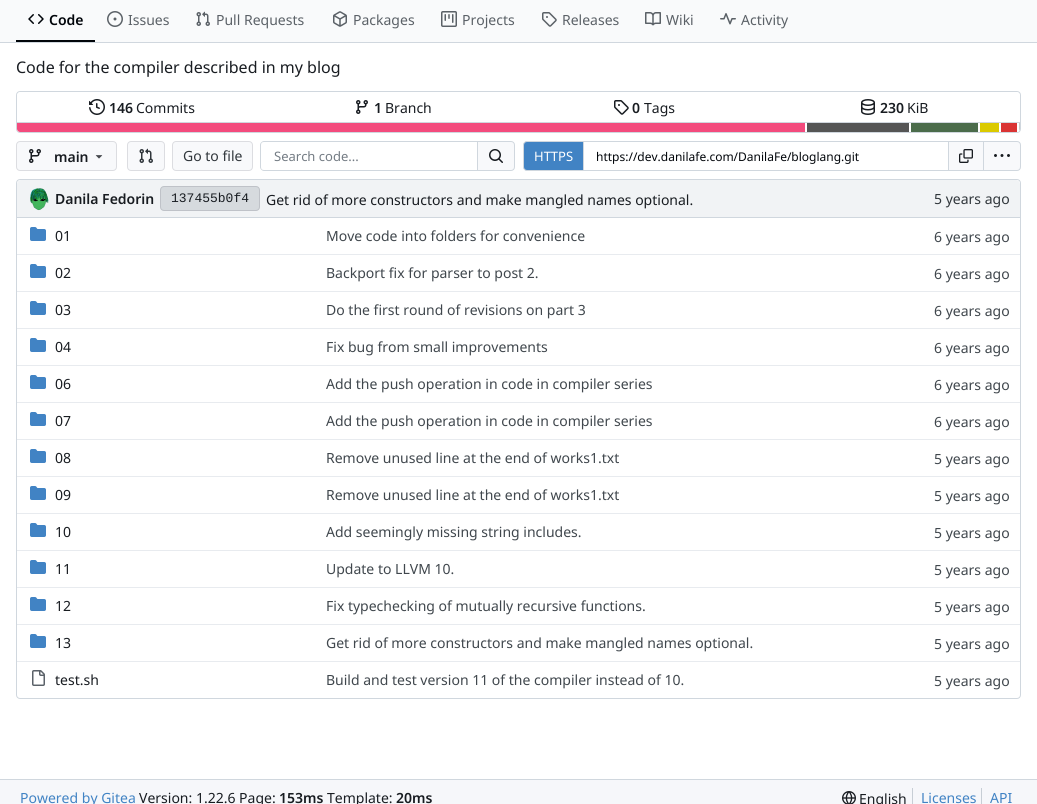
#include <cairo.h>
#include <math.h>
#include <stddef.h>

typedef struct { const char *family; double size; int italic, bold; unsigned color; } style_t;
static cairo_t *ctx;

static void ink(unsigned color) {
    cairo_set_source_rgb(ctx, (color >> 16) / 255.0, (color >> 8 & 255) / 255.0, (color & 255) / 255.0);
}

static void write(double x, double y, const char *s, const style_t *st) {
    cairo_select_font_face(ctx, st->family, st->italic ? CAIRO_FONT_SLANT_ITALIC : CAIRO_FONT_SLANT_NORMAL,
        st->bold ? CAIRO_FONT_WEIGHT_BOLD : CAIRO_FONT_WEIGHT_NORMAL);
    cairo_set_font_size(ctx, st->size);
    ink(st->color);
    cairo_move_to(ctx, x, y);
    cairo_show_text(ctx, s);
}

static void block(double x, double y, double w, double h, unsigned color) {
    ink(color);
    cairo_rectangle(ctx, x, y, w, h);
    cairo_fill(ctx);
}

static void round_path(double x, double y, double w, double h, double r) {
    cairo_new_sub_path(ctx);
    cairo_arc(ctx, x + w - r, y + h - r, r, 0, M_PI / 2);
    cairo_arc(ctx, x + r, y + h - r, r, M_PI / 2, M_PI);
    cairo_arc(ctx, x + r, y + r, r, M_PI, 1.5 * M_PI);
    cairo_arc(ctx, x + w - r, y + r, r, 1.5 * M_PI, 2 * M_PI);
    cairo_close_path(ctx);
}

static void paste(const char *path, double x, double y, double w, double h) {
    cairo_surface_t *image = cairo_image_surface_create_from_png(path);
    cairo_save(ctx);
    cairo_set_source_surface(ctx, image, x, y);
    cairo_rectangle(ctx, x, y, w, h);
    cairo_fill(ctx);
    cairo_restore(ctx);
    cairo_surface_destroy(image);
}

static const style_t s1 = {"Noto Sans SemiBold", 14, 0, 0, 0x01050a};
static const style_t s2 = {"Noto Sans", 14, 0, 0, 0x5b6167};
static const style_t s3 = {"Noto Sans", 16, 0, 0, 0x181c21};
static const style_t s4 = {"Noto Sans SemiBold", 14, 0, 0, 0x181c21};
static const style_t s5 = {"Noto Sans", 14, 0, 0, 0x181c21};
static const style_t s6 = {"Noto Sans", 14, 0, 0, 0x30363b};
static const style_t s7 = {"Noto Sans", 13, 0, 0, 0x747c84};
static const style_t s8 = {"Noto Sans", 13, 0, 0, 0xffffff};
static const style_t s9 = {"Noto Sans", 12, 0, 0, 0x01050a};
static const style_t s10 = {"Liberation Mono", 13, 0, 0, 0x181c21};
static const style_t s11 = {"Noto Sans", 14, 0, 0, 0x40474d};
static const style_t s12 = {"Noto Sans", 14, 0, 0, 0x4183c4};

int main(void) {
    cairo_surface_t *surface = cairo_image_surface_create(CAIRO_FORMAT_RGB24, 1037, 804);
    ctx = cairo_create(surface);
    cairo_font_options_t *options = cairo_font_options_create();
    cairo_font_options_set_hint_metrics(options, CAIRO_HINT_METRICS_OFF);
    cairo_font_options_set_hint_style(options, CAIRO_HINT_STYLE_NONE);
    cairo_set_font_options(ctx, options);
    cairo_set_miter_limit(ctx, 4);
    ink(0xffffff);
    cairo_paint(ctx);
    block(0, 0, 1037, 42, 0xf9fafb);
    block(16, 40, 79, 2, 0x01050a);
    paste("pic1.png", 28, 14, 16, 10);
    write(49, 25, "Code", &s1);
    paste("pic2.png", 107, 11, 16, 16);
    write(128, 25, "Issues", &s2);
    paste("pic3.png", 196, 11, 14, 15);
    write(216, 25, "Pull Requests", &s2);
    paste("pic4.png", 333, 11, 14, 16);
    write(353, 25, "Packages", &s2);
    paste("pic5.png", 441, 11, 16, 16);
    write(462, 25, "Projects", &s2);
    paste("pic6.png", 542, 12, 15, 15);
    write(562, 25, "Releases", &s2);
    paste("pic7.png", 645, 12, 16, 14);
    write(666, 25, "Wiki", &s2);
    paste("pic8.png", 720, 13, 16, 12);
    write(741, 25, "Activity", &s2);
    block(0, 42, 1037, 1, 0xd0d7de);
    write(16, 73, "Code for the compiler described in my blog", &s3);
    round_path(16.5, 91.5, 1004, 41, 3.5);
    ink(0xd0d7de);
    cairo_set_line_width(ctx, 1);
    cairo_stroke(ctx);
    ink(0xffffff);
    round_path(17, 92, 1003, 30, 4);
    cairo_fill(ctx);
    paste("pic9.png", 89, 99, 16, 16);
    write(109, 113, "146", &s4);
    write(136, 113, "Commits", &s5);
    paste("pic10.png", 356, 100, 12, 14);
    write(374, 113, "1", &s4);
    write(385, 113, "Branch", &s5);
    paste("pic11.png", 614, 100, 15, 15);
    write(632, 113, "0", &s4);
    write(644, 113, "Tags", &s5);
    paste("pic12.png", 861, 99, 14, 16);
    write(880, 113, "230", &s4);
    write(907, 113, "KiB", &s5);
    ink(0xffffff);
    cairo_new_path(ctx);
    cairo_move_to(ctx, 17, 122);
    cairo_line_to(ctx, 1020, 122);
    cairo_line_to(ctx, 1020, 129);
    cairo_curve_to(ctx, 1020, 130.5, 1018.5, 132, 1017, 132);
    cairo_line_to(ctx, 20, 132);
    cairo_curve_to(ctx, 18.5, 132, 17, 130.5, 17, 129);
    cairo_close_path(ctx);
    cairo_fill(ctx);
    block(17, 122, 1003, 1, 0xd0d7de);
    ink(0xf34b7d);
    cairo_new_path(ctx);
    cairo_move_to(ctx, 17, 123);
    cairo_line_to(ctx, 805, 123);
    cairo_line_to(ctx, 805, 132);
    cairo_line_to(ctx, 20, 132);
    cairo_curve_to(ctx, 18.5, 132, 17, 130.5, 17, 129);
    cairo_close_path(ctx);
    cairo_fill(ctx);
    block(807, 123, 102, 9, 0x555555);
    block(911, 123, 67, 9, 0x4b6c4b);
    block(980, 123, 19, 9, 0xdbca00);
    block(1001, 123, 16, 9, 0xda3434);
    cairo_save(ctx);
    cairo_new_path(ctx);
    cairo_move_to(ctx, 17, 123);
    cairo_line_to(ctx, 1020, 123);
    cairo_line_to(ctx, 1020, 129);
    cairo_curve_to(ctx, 1020, 130.5, 1018.5, 132, 1017, 132);
    cairo_line_to(ctx, 20, 132);
    cairo_curve_to(ctx, 18.5, 132, 17, 130.5, 17, 129);
    cairo_close_path(ctx);
    cairo_clip(ctx);
    block(1019, 123, 1, 9, 0xcccccc);
    cairo_restore(ctx);
    ink(0xf8f9fb);
    round_path(16.5, 141.5, 100, 29, 3.5);
    cairo_fill_preserve(ctx);
    ink(0xdcdde1);
    cairo_stroke(ctx);
    paste("pic13.png", 29, 149, 12, 14);
    write(54, 162, "main", &s4);
    paste("pic14.png", 95, 155, 8, 4);
    ink(0xf8f9fb);
    round_path(127.5, 141.5, 37, 29, 3.5);
    cairo_fill_preserve(ctx);
    ink(0xdcdde1);
    cairo_stroke(ctx);
    paste("pic15.png", 139, 148, 14, 15);
    ink(0xf8f9fb);
    round_path(172.5, 141.5, 80, 29, 3.5);
    cairo_fill_preserve(ctx);
    ink(0xdcdde1);
    cairo_stroke(ctx);
    write(183, 161, "Go to file", &s6);
    ink(0xd0d7de);
    cairo_set_fill_rule(ctx, CAIRO_FILL_RULE_EVEN_ODD);
    cairo_new_path(ctx);
    cairo_move_to(ctx, 264, 141);
    cairo_line_to(ctx, 477, 141);
    cairo_line_to(ctx, 477, 171);
    cairo_line_to(ctx, 264, 171);
    cairo_curve_to(ctx, 262, 171, 260, 169, 260, 167);
    cairo_line_to(ctx, 260, 145);
    cairo_curve_to(ctx, 260, 143, 262, 141, 264, 141);
    cairo_close_path(ctx);
    cairo_move_to(ctx, 264, 142);
    cairo_line_to(ctx, 477, 142);
    cairo_line_to(ctx, 477, 170);
    cairo_line_to(ctx, 264, 170);
    cairo_curve_to(ctx, 262, 170, 261, 169, 261, 167);
    cairo_line_to(ctx, 261, 145);
    cairo_curve_to(ctx, 261, 143, 262, 142, 264, 142);
    cairo_close_path(ctx);
    cairo_fill(ctx);
    write(274, 161, "Search code...", &s7);
    ink(0xf8f9fb);
    cairo_new_path(ctx);
    cairo_move_to(ctx, 477.5, 141.5);
    cairo_line_to(ctx, 511, 141.5);
    cairo_curve_to(ctx, 513, 141.5, 514.5, 143, 514.5, 145);
    cairo_line_to(ctx, 514.5, 167);
    cairo_curve_to(ctx, 514.5, 169, 513, 170.5, 511, 170.5);
    cairo_line_to(ctx, 477.5, 170.5);
    cairo_close_path(ctx);
    cairo_fill_preserve(ctx);
    ink(0xd0d7de);
    cairo_stroke(ctx);
    paste("pic16.png", 489, 149, 14, 14);
    ink(0x4183c4);
    cairo_new_path(ctx);
    cairo_move_to(ctx, 527, 141.5);
    cairo_line_to(ctx, 583.5, 141.5);
    cairo_line_to(ctx, 583.5, 170.5);
    cairo_line_to(ctx, 527, 170.5);
    cairo_curve_to(ctx, 525, 170.5, 523.5, 169, 523.5, 167);
    cairo_line_to(ctx, 523.5, 145);
    cairo_curve_to(ctx, 523.5, 143, 525, 141.5, 527, 141.5);
    cairo_close_path(ctx);
    cairo_fill_preserve(ctx);
    ink(0xd0d7de);
    cairo_stroke(ctx);
    write(534, 161, "HTTPS", &s8);
    block(583, 141, 365, 1, 0xd0d7de);
    block(583, 170, 365, 1, 0xd0d7de);
    write(596, 161, "https://dev.danilafe.com/DanilaFe/bloglang.git", &s9);
    ink(0xf8f9fb);
    cairo_rectangle(ctx, 948.5, 141.5, 35, 29);
    cairo_fill_preserve(ctx);
    ink(0xd0d7de);
    cairo_stroke(ctx);
    paste("pic17.png", 959, 149, 14, 14);
    ink(0xf8f9fb);
    cairo_new_path(ctx);
    cairo_move_to(ctx, 983.5, 141.5);
    cairo_line_to(ctx, 1017, 141.5);
    cairo_curve_to(ctx, 1019, 141.5, 1020.5, 143, 1020.5, 145);
    cairo_line_to(ctx, 1020.5, 167);
    cairo_curve_to(ctx, 1020.5, 169, 1019, 170.5, 1017, 170.5);
    cairo_line_to(ctx, 983.5, 170.5);
    cairo_close_path(ctx);
    cairo_fill_preserve(ctx);
    ink(0xd0d7de);
    cairo_stroke(ctx);
    paste("pic18.png", 994, 154, 16, 3);
    round_path(16.5, 179.5, 1004, 519, 3.5);
    cairo_stroke(ctx);
    ink(0xf1f3f5);
    cairo_new_path(ctx);
    cairo_move_to(ctx, 21, 180);
    cairo_line_to(ctx, 929, 180);
    cairo_line_to(ctx, 929, 218);
    cairo_line_to(ctx, 17, 218);
    cairo_line_to(ctx, 17, 184);
    cairo_curve_to(ctx, 17, 182, 19, 180, 21, 180);
    cairo_close_path(ctx);
    cairo_fill(ctx);
    block(17, 217, 912, 1, 0xd0d7de);
    paste("pic19.png", 30, 188, 19, 23);
    write(55, 204, "Danila Fedorin", &s4);
    ink(0xd6dade);
    round_path(160, 186, 100, 25, 4);
    cairo_fill(ctx);
    round_path(160.5, 186.5, 99, 24, 3.5);
    cairo_set_source_rgba(ctx, 0, 0, 0.09, 0.11);
    cairo_stroke(ctx);
    write(171, 202, "137455b0f4", &s10);
    write(266, 205, "Get rid of more constructors and make mangled names optional.", &s5);
    ink(0xf1f3f5);
    cairo_new_path(ctx);
    cairo_move_to(ctx, 929, 180);
    cairo_line_to(ctx, 1016, 180);
    cairo_curve_to(ctx, 1018, 180, 1020, 182, 1020, 184);
    cairo_line_to(ctx, 1020, 218);
    cairo_line_to(ctx, 929, 218);
    cairo_close_path(ctx);
    cairo_fill(ctx);
    block(929, 217, 91, 1, 0xd0d7de);
    write(934, 204, "5 years ago", &s6);
    paste("pic20.png", 30, 227, 16, 14);
    write(55, 241, "01", &s5);
    write(326, 241, "Move code into folders for convenience", &s11);
    write(934, 242, "6 years ago", &s11);
    block(17, 254, 1003, 1, 0xe8ebef);
    paste("pic20.png", 30, 264, 16, 14);
    write(55, 278, "02", &s5);
    write(326, 278, "Backport fix for parser to post 2.", &s11);
    write(934, 279, "6 years ago", &s11);
    block(17, 291, 1003, 1, 0xe8ebef);
    paste("pic20.png", 30, 301, 16, 14);
    write(55, 315, "03", &s5);
    write(326, 315, "Do the first round of revisions on part 3", &s11);
    write(934, 316, "6 years ago", &s11);
    block(17, 328, 1003, 1, 0xe8ebef);
    paste("pic20.png", 30, 338, 16, 14);
    write(55, 352, "04", &s5);
    write(326, 352, "Fix bug from small improvements", &s11);
    write(934, 353, "6 years ago", &s11);
    block(17, 365, 1003, 1, 0xe8ebef);
    paste("pic20.png", 30, 375, 16, 14);
    write(55, 389, "06", &s5);
    write(326, 389, "Add the push operation in code in compiler series", &s11);
    write(934, 390, "6 years ago", &s11);
    block(17, 402, 1003, 1, 0xe8ebef);
    paste("pic20.png", 30, 412, 16, 14);
    write(55, 426, "07", &s5);
    write(326, 426, "Add the push operation in code in compiler series", &s11);
    write(934, 427, "6 years ago", &s11);
    block(17, 439, 1003, 1, 0xe8ebef);
    paste("pic20.png", 30, 449, 16, 14);
    write(55, 463, "08", &s5);
    write(326, 463, "Remove unused line at the end of works1.txt", &s11);
    write(934, 464, "5 years ago", &s11);
    block(17, 476, 1003, 1, 0xe8ebef);
    paste("pic20.png", 30, 486, 16, 14);
    write(55, 500, "09", &s5);
    write(326, 500, "Remove unused line at the end of works1.txt", &s11);
    write(934, 501, "5 years ago", &s11);
    block(17, 513, 1003, 1, 0xe8ebef);
    paste("pic20.png", 30, 523, 16, 14);
    write(55, 537, "10", &s5);
    write(326, 537, "Add seemingly missing string includes.", &s11);
    write(934, 538, "5 years ago", &s11);
    block(17, 550, 1003, 1, 0xe8ebef);
    paste("pic20.png", 30, 560, 16, 14);
    write(55, 574, "11", &s5);
    write(326, 574, "Update to LLVM 10.", &s11);
    write(934, 575, "5 years ago", &s11);
    block(17, 587, 1003, 1, 0xe8ebef);
    paste("pic20.png", 30, 597, 16, 14);
    write(55, 611, "12", &s5);
    write(326, 611, "Fix typechecking of mutually recursive functions.", &s11);
    write(934, 612, "5 years ago", &s11);
    block(17, 624, 1003, 1, 0xe8ebef);
    paste("pic20.png", 30, 634, 16, 14);
    write(55, 648, "13", &s5);
    write(326, 648, "Get rid of more constructors and make mangled names optional.", &s11);
    write(934, 649, "5 years ago", &s11);
    block(17, 661, 1003, 1, 0xe8ebef);
    paste("pic21.png", 32, 670, 13, 16);
    write(55, 685, "test.sh", &s5);
    write(326, 685, "Build and test version 11 of the compiler instead of 10.", &s11);
    write(934, 686, "5 years ago", &s11);
    block(0, 780, 1037, 24, 0xf6f7fa);
    block(0, 779, 1037, 1, 0xd0d7de);
    write(20, 803, "Powered by Gitea", &s12);
    write(139, 803, "Version: 1.22.6 Page:", &s5);
    write(279, 803, "153ms", &s4);
    write(327, 803, "Template:", &s5);
    write(396, 803, "20ms", &s4);
    paste("pic22.png", 842, 791, 14, 13);
    write(859, 804, "English", &s5);
    block(912, 788, 1, 16, 0xc7ced5);
    write(921, 803, "Licenses", &s12);
    block(981, 788, 1, 16, 0xc7ced5);
    write(990, 803, "API", &s12);
    cairo_surface_write_to_png(surface, "screenshot.png");
    cairo_font_options_destroy(options);
    cairo_destroy(ctx);
    cairo_surface_destroy(surface);
    return 0;
}
